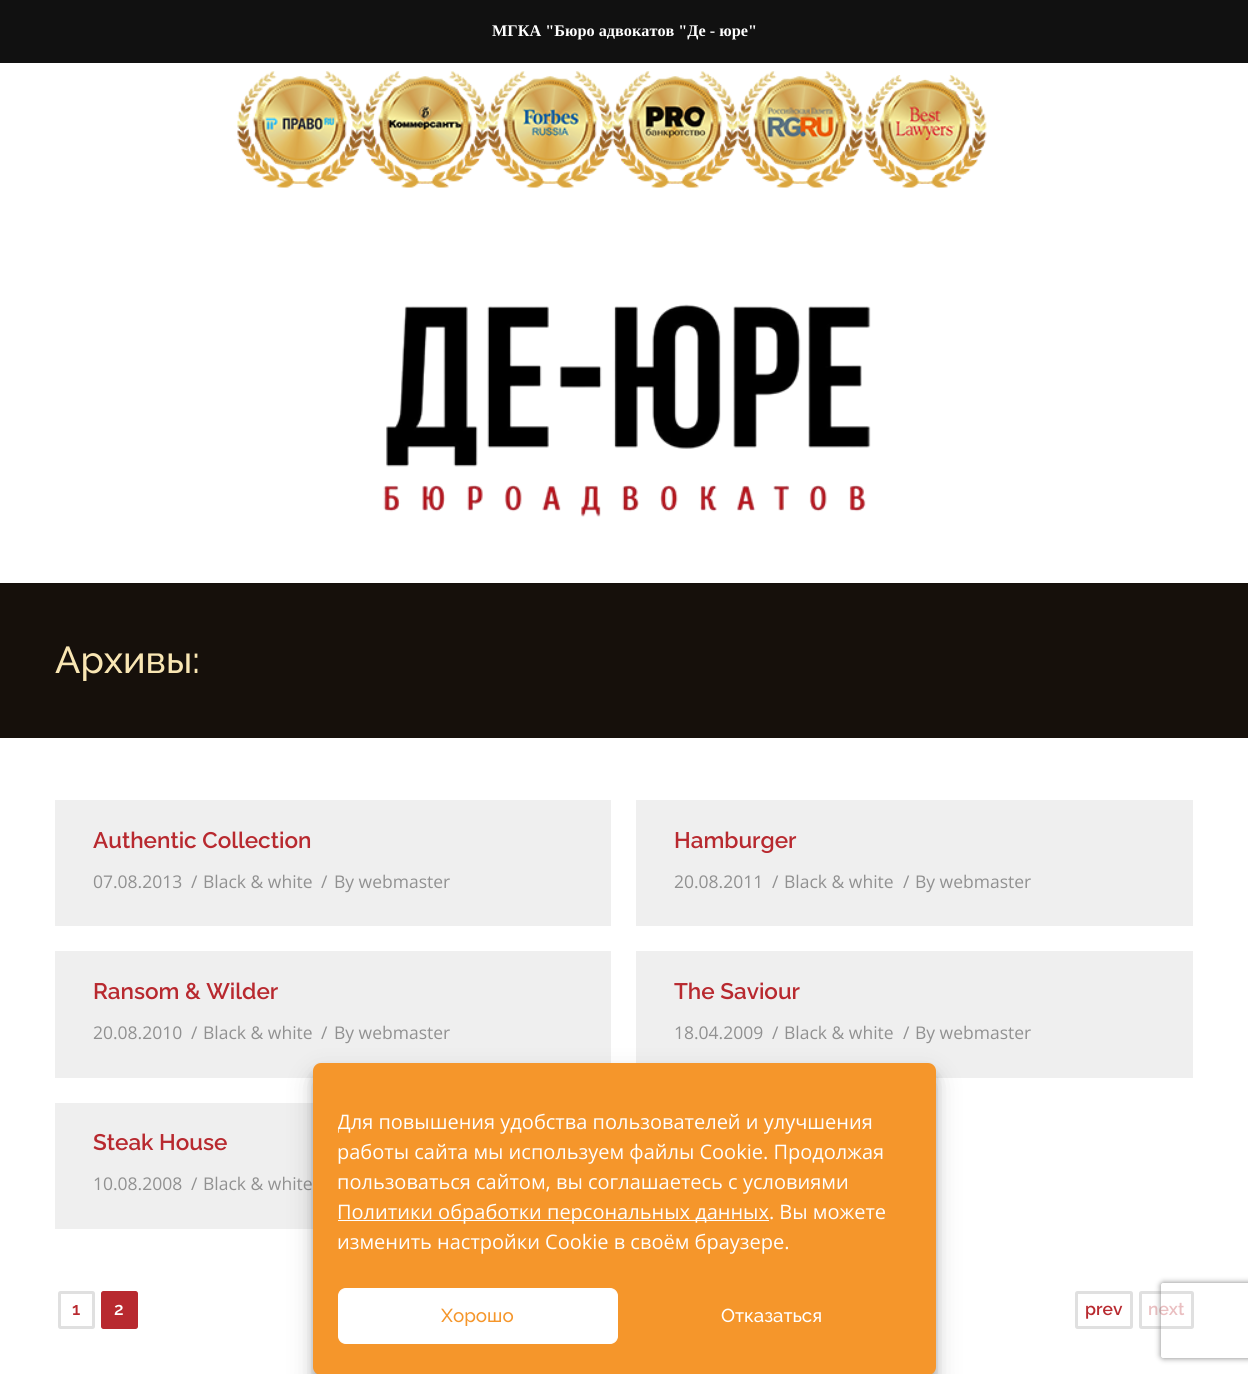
#include <cairo.h>
#include <math.h>
#include <stddef.h>

typedef struct { const char *family; double size; int italic, bold; unsigned color; } style_t;
static cairo_t *ctx;

static void ink(unsigned color) {
    cairo_set_source_rgb(ctx, (color >> 16) / 255.0, (color >> 8 & 255) / 255.0, (color & 255) / 255.0);
}

static void write(double x, double y, const char *s, const style_t *st) {
    cairo_select_font_face(ctx, st->family, st->italic ? CAIRO_FONT_SLANT_ITALIC : CAIRO_FONT_SLANT_NORMAL,
        st->bold ? CAIRO_FONT_WEIGHT_BOLD : CAIRO_FONT_WEIGHT_NORMAL);
    cairo_set_font_size(ctx, st->size);
    ink(st->color);
    cairo_move_to(ctx, x, y);
    cairo_show_text(ctx, s);
}

static void block(double x, double y, double w, double h, unsigned color) {
    ink(color);
    cairo_rectangle(ctx, x, y, w, h);
    cairo_fill(ctx);
}

static void round_path(double x, double y, double w, double h, double r) {
    cairo_new_sub_path(ctx);
    cairo_arc(ctx, x + w - r, y + h - r, r, 0, M_PI / 2);
    cairo_arc(ctx, x + r, y + h - r, r, M_PI / 2, M_PI);
    cairo_arc(ctx, x + r, y + r, r, M_PI, 1.5 * M_PI);
    cairo_arc(ctx, x + w - r, y + r, r, 1.5 * M_PI, 2 * M_PI);
    cairo_close_path(ctx);
}

static void blur_box(double x, double y, double w, double h, double r, double blur, double alpha) {
    cairo_push_group_with_content(ctx, CAIRO_CONTENT_ALPHA);
    cairo_set_operator(ctx, CAIRO_OPERATOR_SOURCE);
    for (int i = 15; i >= -15 && fmin(w, h) + blur * i / 3 > 0; i -= 2) {
        double e = blur * i / 6;
        cairo_set_source_rgba(ctx, 0, 0, 0, alpha * erfc((i - 1) / 8.5) / 2);
        round_path(x - e, y - e, w + 2 * e, h + 2 * e, fmax(0, fmin(r + e + blur * .6, fmin(w, h) / 2 + e)));
        cairo_fill(ctx);
    }
    cairo_pattern_t *soft = cairo_pop_group(ctx);
    cairo_mask(ctx, soft);
    cairo_pattern_destroy(soft);
}

static void paste(const char *path, double x, double y, double w, double h) {
    cairo_surface_t *image = cairo_image_surface_create_from_png(path);
    cairo_save(ctx);
    cairo_set_source_surface(ctx, image, x, y);
    cairo_rectangle(ctx, x, y, w, h);
    cairo_fill(ctx);
    cairo_restore(ctx);
    cairo_surface_destroy(image);
}

static const style_t s1 = {"Liberation Serif", 16.25, 0, 1, 0xffffff};
static const style_t s2 = {"Raleway Medium", 37.5, 0, 0, 0xf9e6b3};
static const style_t s3 = {"Raleway SemiBold", 22.5, 0, 0, 0xb8292f};
static const style_t s4 = {"Open Sans", 17.5, 0, 0, 0x919191};
static const style_t s5 = {"Raleway SemiBold", 17.5, 0, 0, 0xb8292f};
static const style_t s6 = {"Raleway SemiBold", 17.5, 0, 0, 0xffffff};
static const style_t s7 = {"Raleway SemiBold", 17.5, 0, 0, 0xeabfc1};
static const style_t s8 = {"Open Sans", 20, 0, 0, 0xffffff};
static const style_t s9 = {"Raleway Medium", 18.75, 0, 0, 0xf5962b};
static const style_t s10 = {"Raleway Medium", 18.75, 0, 0, 0xffffff};

int main(void) {
    cairo_surface_t *surface = cairo_image_surface_create(CAIRO_FORMAT_RGB24, 1248, 1374);
    ctx = cairo_create(surface);
    cairo_font_options_t *options = cairo_font_options_create();
    cairo_font_options_set_hint_metrics(options, CAIRO_HINT_METRICS_OFF);
    cairo_font_options_set_hint_style(options, CAIRO_HINT_STYLE_NONE);
    cairo_set_font_options(ctx, options);
    cairo_set_miter_limit(ctx, 4);
    ink(0xffffff);
    cairo_paint(ctx);
    block(0, 583, 1248, 155, 0x16100b);
    ink(0x000000);
    blur_box(0, 63, 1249, 520, 0, 2.5, 0.15);
    block(0, 0, 1248, 63, 0x111111);
    write(492, 36, "МГКА \"Бюро адвокатов \"Де - юре\"", &s1);
    block(0, 63, 1248, 520, 0xffffff);
    paste("pic1.png", 237, 71, 126, 117);
    paste("pic2.png", 362, 71, 126, 117);
    paste("pic3.png", 487, 71, 126, 117);
    paste("pic4.png", 612, 71, 126, 117);
    paste("pic5.png", 737, 71, 126, 117);
    paste("pic6.png", 863, 75, 124, 113);
    paste("pic7.png", 383, 304, 488, 213);
    write(55, 673, "Архивы:", &s2);
    block(55, 800, 556, 126, 0xefefef);
    write(93, 848, "Authentic Collection", &s3);
    write(93, 888, "07.08.2013", &s4);
    write(191, 888, "/", &s4);
    write(203, 888, "Black & white", &s4);
    write(321, 888, "/", &s4);
    write(334, 888, "By webmaster", &s4);
    block(636, 800, 557, 126, 0xefefef);
    write(674, 848, "Hamburger", &s3);
    write(674, 888, "20.08.2011", &s4);
    write(772, 888, "/", &s4);
    write(784, 888, "Black & white", &s4);
    write(903, 888, "/", &s4);
    write(915, 888, "By webmaster", &s4);
    block(55, 951, 556, 127, 0xefefef);
    write(93, 999, "Ransom & Wilder", &s3);
    write(93, 1039, "20.08.2010", &s4);
    write(191, 1039, "/", &s4);
    write(203, 1039, "Black & white", &s4);
    write(321, 1039, "/", &s4);
    write(334, 1039, "By webmaster", &s4);
    block(636, 951, 557, 127, 0xefefef);
    write(674, 999, "The Saviour", &s3);
    write(674, 1039, "18.04.2009", &s4);
    write(772, 1039, "/", &s4);
    write(784, 1039, "Black & white", &s4);
    write(903, 1039, "/", &s4);
    write(915, 1039, "By webmaster", &s4);
    block(55, 1103, 258, 126, 0xefefef);
    write(93, 1150, "Steak House", &s3);
    write(93, 1190, "10.08.2008", &s4);
    write(191, 1190, "/", &s4);
    write(203, 1190, "Black & white", &s4);
    round_path(59.5, 1292.5, 34, 35, 1);
    ink(0xe0e0e0);
    cairo_set_line_width(ctx, 3);
    cairo_stroke(ctx);
    write(72, 1315, "1", &s5);
    round_path(101, 1291, 37, 38, 2.5);
    cairo_fill(ctx);
    write(114, 1315, "2", &s6);
    round_path(1076.5, 1292.5, 55, 35, 1);
    ink(0xe0e0e0);
    cairo_stroke(ctx);
    write(1085, 1315, "prev", &s5);
    round_path(1140.5, 1292.5, 52, 35, 1);
    ink(0xe0e0e0);
    cairo_stroke(ctx);
    write(1148, 1315, "next", &s7);
    ink(0x000000);
    blur_box(313, 1070, 623, 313, 8, 4, 0.23);
    blur_box(313, 1075, 623, 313, 8, 12.5, 0.19);
    ink(0xf5962b);
    round_path(313, 1063, 623, 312, 8);
    cairo_fill(ctx);
    cairo_save(ctx);
    cairo_rectangle(ctx, 338, 1106, 573, 157);
    cairo_clip(ctx);
    write(337, 1129, "Для повышения удобства пользователей и улучшения", &s8);
    cairo_restore(ctx);
    write(337, 1159, "работы сайта мы используем файлы Cookie. Продолжая", &s8);
    write(337, 1189, "пользоваться сайтом, вы соглашаетесь с условиями", &s8);
    block(338, 1220, 431, 1, 0xffffff);
    write(337, 1219, "Политики обработки персональных данных. Вы можете", &s8);
    write(337, 1249, "изменить настройки Cookie в своём браузере.", &s8);
    round_path(338.5, 1288.5, 279, 55, 7.5);
    cairo_fill_preserve(ctx);
    cairo_set_line_width(ctx, 1);
    cairo_stroke(ctx);
    write(441, 1322, "Хорошо", &s9);
    write(721, 1322, "Отказаться", &s10);
    cairo_save(ctx);
    cairo_set_fill_rule(ctx, CAIRO_FILL_RULE_EVEN_ODD);
    cairo_new_path(ctx);
    cairo_move_to(ctx, 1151, 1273);
    cairo_line_to(ctx, 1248, 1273);
    cairo_line_to(ctx, 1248, 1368);
    cairo_line_to(ctx, 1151, 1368);
    cairo_close_path(ctx);
    cairo_move_to(ctx, 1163.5, 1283);
    cairo_line_to(ctx, 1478.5, 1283);
    cairo_curve_to(ctx, 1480, 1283, 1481, 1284, 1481, 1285.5);
    cairo_line_to(ctx, 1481, 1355.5);
    cairo_curve_to(ctx, 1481, 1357, 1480, 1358, 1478.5, 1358);
    cairo_line_to(ctx, 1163.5, 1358);
    cairo_curve_to(ctx, 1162, 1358, 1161, 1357, 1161, 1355.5);
    cairo_line_to(ctx, 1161, 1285.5);
    cairo_curve_to(ctx, 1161, 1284, 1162, 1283, 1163.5, 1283);
    cairo_close_path(ctx);
    cairo_clip(ctx);
    ink(0x808080);
    blur_box(1161, 1283, 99, 75, 2.5, 3, 1);
    cairo_restore(ctx);
    cairo_surface_write_to_png(surface, "screenshot.png");
    cairo_font_options_destroy(options);
    cairo_destroy(ctx);
    cairo_surface_destroy(surface);
    return 0;
}
